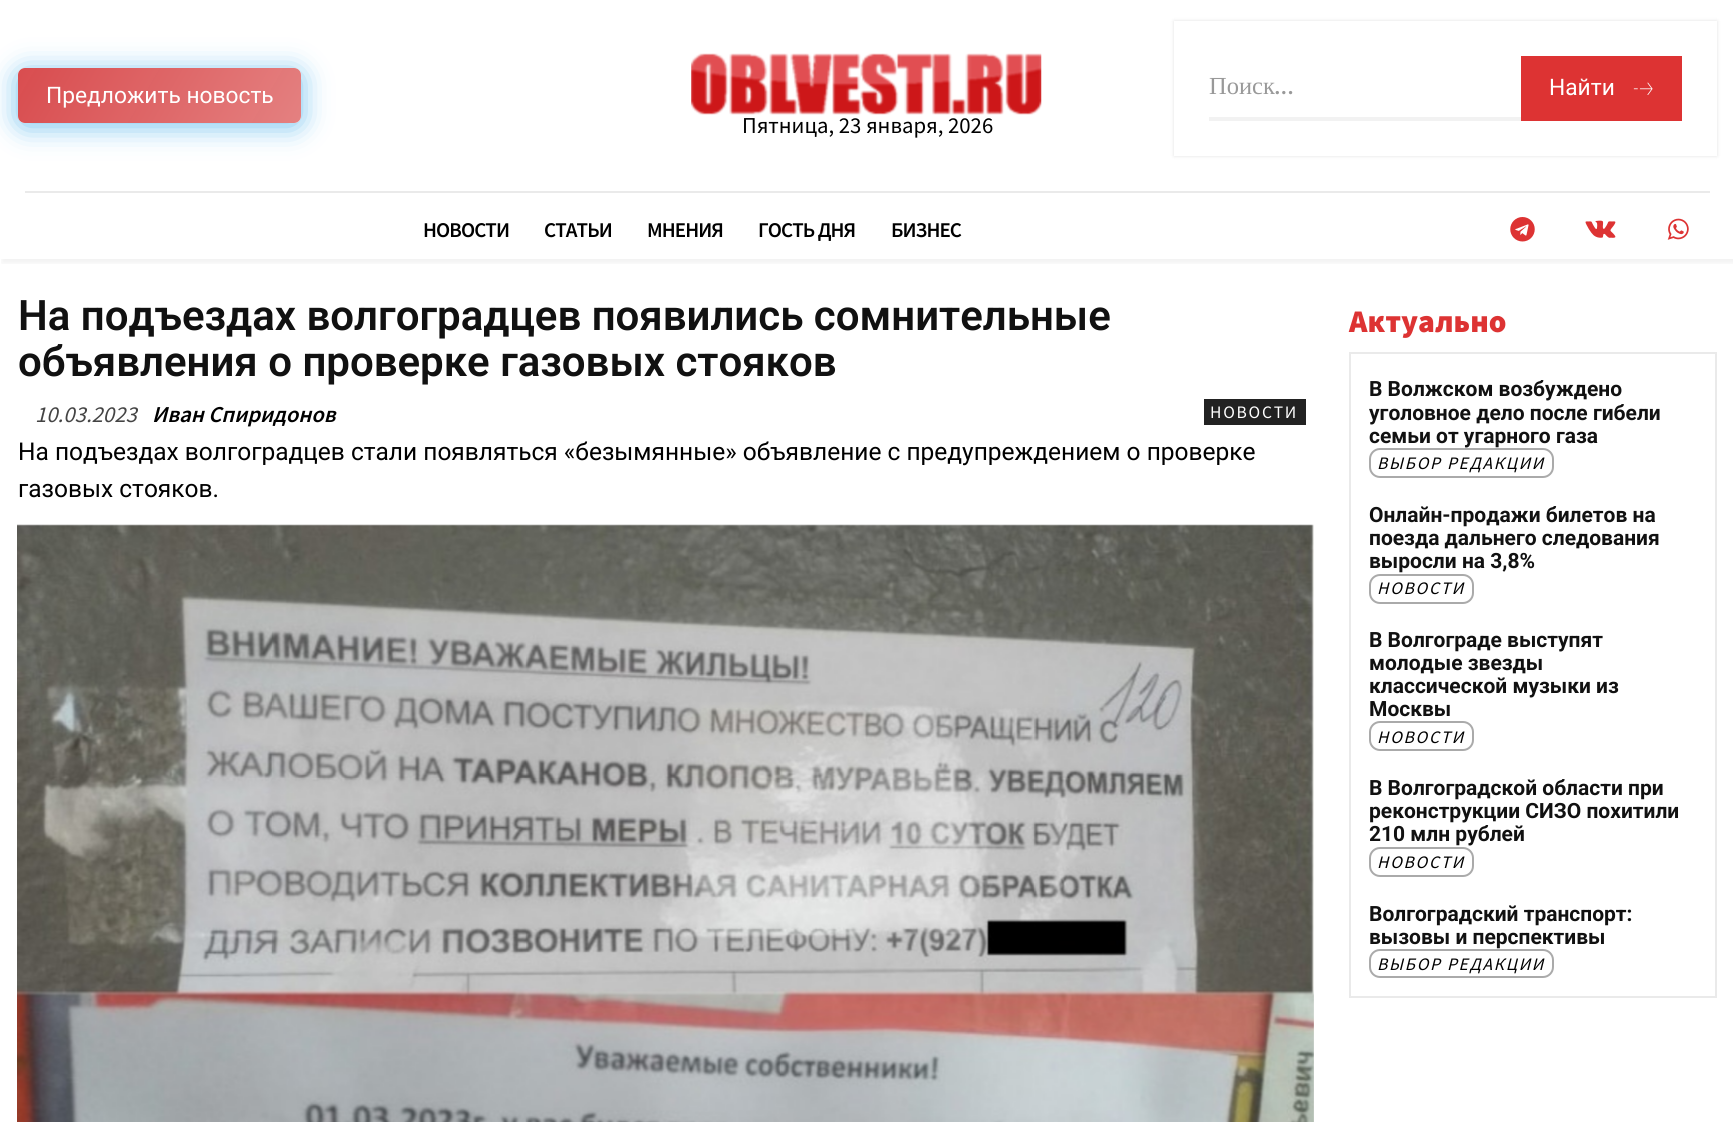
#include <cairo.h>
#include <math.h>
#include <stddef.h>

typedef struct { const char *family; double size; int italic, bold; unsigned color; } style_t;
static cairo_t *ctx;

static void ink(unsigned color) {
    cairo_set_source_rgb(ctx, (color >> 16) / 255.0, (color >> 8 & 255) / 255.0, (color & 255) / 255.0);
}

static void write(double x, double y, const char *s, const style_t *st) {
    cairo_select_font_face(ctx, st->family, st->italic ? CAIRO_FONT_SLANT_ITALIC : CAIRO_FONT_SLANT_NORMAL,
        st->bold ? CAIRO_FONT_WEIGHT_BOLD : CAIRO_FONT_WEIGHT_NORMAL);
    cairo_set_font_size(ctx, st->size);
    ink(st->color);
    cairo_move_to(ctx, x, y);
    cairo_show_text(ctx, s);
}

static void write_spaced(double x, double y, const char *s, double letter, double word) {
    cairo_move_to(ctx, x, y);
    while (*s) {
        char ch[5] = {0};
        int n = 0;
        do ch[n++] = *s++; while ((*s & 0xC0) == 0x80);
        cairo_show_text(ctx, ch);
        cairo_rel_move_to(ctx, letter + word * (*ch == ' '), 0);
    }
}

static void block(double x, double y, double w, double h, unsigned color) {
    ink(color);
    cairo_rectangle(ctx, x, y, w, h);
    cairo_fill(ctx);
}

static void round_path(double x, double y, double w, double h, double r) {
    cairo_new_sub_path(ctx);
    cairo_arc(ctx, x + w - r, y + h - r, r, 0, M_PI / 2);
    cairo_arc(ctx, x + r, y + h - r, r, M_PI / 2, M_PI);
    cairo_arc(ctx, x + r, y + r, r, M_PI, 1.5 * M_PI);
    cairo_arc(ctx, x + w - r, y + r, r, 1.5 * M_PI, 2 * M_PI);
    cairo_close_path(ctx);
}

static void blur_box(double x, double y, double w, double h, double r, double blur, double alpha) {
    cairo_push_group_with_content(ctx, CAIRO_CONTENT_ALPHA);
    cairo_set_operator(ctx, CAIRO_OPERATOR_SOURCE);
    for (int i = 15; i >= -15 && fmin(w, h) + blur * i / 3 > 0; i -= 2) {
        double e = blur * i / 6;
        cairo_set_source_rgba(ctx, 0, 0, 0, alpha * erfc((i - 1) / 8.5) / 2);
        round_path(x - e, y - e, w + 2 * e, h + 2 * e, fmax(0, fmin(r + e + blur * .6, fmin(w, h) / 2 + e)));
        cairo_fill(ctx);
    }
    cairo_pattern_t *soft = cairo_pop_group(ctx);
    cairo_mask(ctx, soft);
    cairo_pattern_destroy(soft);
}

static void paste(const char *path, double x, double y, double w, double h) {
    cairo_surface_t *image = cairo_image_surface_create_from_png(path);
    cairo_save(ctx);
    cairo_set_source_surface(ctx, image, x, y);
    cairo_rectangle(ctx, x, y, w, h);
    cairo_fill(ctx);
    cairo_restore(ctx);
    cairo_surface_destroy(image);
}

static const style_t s1 = {"Roboto", 22.75, 0, 0, 0xffffff};
static const style_t s2 = {"Liberation Serif", 24.5, 0, 0, 0x999999};
static const style_t s3 = {"Gelasio", 24.5, 0, 0, 0x999999};
static const style_t s4 = {"Source Sans Pro", 22.75, 0, 0, 0x000000};
static const style_t s5 = {"Roboto SemiBold", 42, 0, 0, 0x111111};
static const style_t s6 = {"Source Sans Pro", 22.75, 1, 0, 0x444444};
static const style_t s7 = {"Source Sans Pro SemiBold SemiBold", 22.75, 1, 0, 0x000000};
static const style_t s8 = {"Roboto", 24.5, 0, 0, 0x000000};
static const style_t s9 = {"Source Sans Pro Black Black", 31.5, 0, 0, 0xdd3333};
static const style_t s10 = {"Roboto", 21, 0, 1, 0x111111};

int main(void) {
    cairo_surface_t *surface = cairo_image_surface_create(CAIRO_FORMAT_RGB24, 1733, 1122);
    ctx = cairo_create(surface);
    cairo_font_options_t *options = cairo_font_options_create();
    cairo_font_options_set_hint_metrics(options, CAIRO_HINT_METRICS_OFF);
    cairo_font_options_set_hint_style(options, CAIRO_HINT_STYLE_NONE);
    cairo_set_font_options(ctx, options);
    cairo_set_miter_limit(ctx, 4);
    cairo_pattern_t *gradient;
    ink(0xffffff);
    cairo_paint(ctx);
    cairo_save(ctx);
    cairo_set_fill_rule(ctx, CAIRO_FILL_RULE_EVEN_ODD);
    cairo_new_path(ctx);
    cairo_move_to(ctx, 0, 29);
    cairo_line_to(ctx, 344, 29);
    cairo_line_to(ctx, 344, 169);
    cairo_line_to(ctx, 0, 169);
    cairo_close_path(ctx);
    cairo_move_to(ctx, 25, 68);
    cairo_line_to(ctx, 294, 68);
    cairo_curve_to(ctx, 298, 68, 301, 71, 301, 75);
    cairo_line_to(ctx, 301, 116);
    cairo_curve_to(ctx, 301, 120, 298, 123, 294, 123);
    cairo_line_to(ctx, 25, 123);
    cairo_curve_to(ctx, 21, 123, 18, 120, 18, 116);
    cairo_line_to(ctx, 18, 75);
    cairo_curve_to(ctx, 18, 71, 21, 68, 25, 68);
    cairo_close_path(ctx);
    cairo_clip(ctx);
    ink(0x4db2ec);
    blur_box(18, 72, 283, 54, 7, 14, 0.8);
    cairo_restore(ctx);
    gradient = cairo_pattern_create_linear(277, 164, 41, 27);
    cairo_pattern_add_color_stop_rgba(gradient, 0, 0.867, 0.365, 0.365, 0.78);
    cairo_pattern_add_color_stop_rgba(gradient, 1, 0.804, 0.09, 0.102, 0.77);
    cairo_set_source(ctx, gradient);
    cairo_pattern_destroy(gradient);
    round_path(18, 68, 283, 55, 7);
    cairo_fill(ctx);
    write(46, 103, "Предложить новость", &s1);
    ink(0x000000);
    blur_box(1174, 21, 543, 135, 0, 2, 0.11);
    block(1174, 21, 543, 135, 0xffffff);
    write(1209, 94, "Поиск", &s2);
    write(1274, 94, "...", &s3);
    block(1521, 56, 161, 65, 0xdd3333);
    write(1549, 95, "Найти", &s1);
    paste("pic1.png", 1633, 82, 20, 13);
    block(1209, 117, 312, 4, 0xf2f2f2);
    paste("pic2.png", 691, 53, 351, 62);
    write(742, 133, "Пятница, 23 января, 2026", &s4);
    block(25, 191, 1685, 2, 0xeaeaea);
    paste("pic3.png", 1510, 217, 25, 25);
    paste("pic4.png", 1585, 220, 31, 18);
    paste("pic5.png", 1667, 218, 22, 22);
    cairo_save(ctx);
    cairo_rectangle(ctx, 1, 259, 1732, 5);
    cairo_clip(ctx);
    ink(0x000000);
    blur_box(2, 142, 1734, 121, 0, 3.5, 0.06);
    cairo_restore(ctx);
    cairo_select_font_face(ctx, "Source Sans Pro SemiBold SemiBold", CAIRO_FONT_SLANT_NORMAL, CAIRO_FONT_WEIGHT_NORMAL);
    cairo_set_font_size(ctx, 21);
    ink(0x000000);
    write_spaced(423, 237, "НОВОСТИ", -0.9, 0);
    write_spaced(544, 237, "CТАТЬИ", -0.9, 0);
    write_spaced(647, 237, "МНЕНИЯ", -0.9, 0);
    write_spaced(758, 237, "ГОСТЬ ДНЯ", -0.9, 0);
    write_spaced(891, 237, "БИЗНЕС", -0.9, 0);
    write(18, 330, "На подъездах волгоградцев появились сомнительные", &s5);
    write(18, 376, "объявления о проверке газовых стояков", &s5);
    write(35, 422, "10.03.2023", &s6);
    write(152, 422, "Иван Спиридонов", &s7);
    block(1204, 399, 102, 26, 0x222222);
    cairo_select_font_face(ctx, "Source Sans Pro", CAIRO_FONT_SLANT_NORMAL, CAIRO_FONT_WEIGHT_NORMAL);
    cairo_set_font_size(ctx, 17.5);
    ink(0xffffff);
    write_spaced(1210, 418, "НОВОСТИ", 1.75, 0);
    write(18, 460, "На подъездах волгоградцев стали появляться «безымянные» объявление с предупреждением о проверке", &s8);
    write(18, 497, "газовых стояков.", &s8);
    paste("pic6.png", 17, 524, 1297, 598);
    write(1349, 332, "Актуально", &s9);
    cairo_rectangle(ctx, 1350, 353, 366, 644);
    ink(0xeaeaea);
    cairo_stroke(ctx);
    write(1369, 396, "В Волжском возбуждено", &s10);
    write(1369, 420, "уголовное дело после гибели", &s10);
    write(1369, 443, "семьи от угарного газа", &s10);
    round_path(1370, 449, 183, 28, 10);
    ink(0xaaaaaa);
    cairo_stroke(ctx);
    cairo_select_font_face(ctx, "Source Sans Pro", CAIRO_FONT_SLANT_ITALIC, CAIRO_FONT_WEIGHT_NORMAL);
    cairo_set_font_size(ctx, 17.5);
    ink(0x000000);
    write_spaced(1377, 469, "ВЫБОР РЕДАКЦИИ", 1.75, 0);
    write(1369, 522, "Онлайн-продажи билетов на", &s10);
    write(1369, 545, "поезда дальнего следования", &s10);
    write(1369, 568, "выросли на 3,8%", &s10);
    round_path(1370, 575, 103, 28, 10);
    ink(0xaaaaaa);
    cairo_stroke(ctx);
    cairo_select_font_face(ctx, "Source Sans Pro", CAIRO_FONT_SLANT_ITALIC, CAIRO_FONT_WEIGHT_NORMAL);
    cairo_set_font_size(ctx, 17.5);
    ink(0x000000);
    write_spaced(1377, 594, "НОВОСТИ", 1.75, 0);
    write(1369, 647, "В Волгограде выступят", &s10);
    write(1369, 670, "молодые звезды", &s10);
    write(1369, 693, "классической музыки из", &s10);
    write(1369, 716, "Москвы", &s10);
    round_path(1370, 722, 103, 28, 10);
    ink(0xaaaaaa);
    cairo_stroke(ctx);
    cairo_select_font_face(ctx, "Source Sans Pro", CAIRO_FONT_SLANT_ITALIC, CAIRO_FONT_WEIGHT_NORMAL);
    cairo_set_font_size(ctx, 17.5);
    ink(0x000000);
    write_spaced(1377, 743, "НОВОСТИ", 1.75, 0);
    write(1369, 795, "В Волгоградской области при", &s10);
    write(1369, 818, "реконструкции СИЗО похитили", &s10);
    write(1369, 841, "210 млн рублей", &s10);
    round_path(1370, 848, 103, 28, 10);
    ink(0xaaaaaa);
    cairo_stroke(ctx);
    cairo_select_font_face(ctx, "Source Sans Pro", CAIRO_FONT_SLANT_ITALIC, CAIRO_FONT_WEIGHT_NORMAL);
    cairo_set_font_size(ctx, 17.5);
    ink(0x000000);
    write_spaced(1377, 868, "НОВОСТИ", 1.75, 0);
    write(1369, 921, "Волгоградский транспорт:", &s10);
    write(1369, 944, "вызовы и перспективы", &s10);
    round_path(1370, 950, 183, 27, 10);
    ink(0xaaaaaa);
    cairo_stroke(ctx);
    cairo_select_font_face(ctx, "Source Sans Pro", CAIRO_FONT_SLANT_ITALIC, CAIRO_FONT_WEIGHT_NORMAL);
    cairo_set_font_size(ctx, 17.5);
    ink(0x000000);
    write_spaced(1377, 970, "ВЫБОР РЕДАКЦИИ", 1.75, 0);
    cairo_surface_write_to_png(surface, "screenshot.png");
    cairo_font_options_destroy(options);
    cairo_destroy(ctx);
    cairo_surface_destroy(surface);
    return 0;
}
